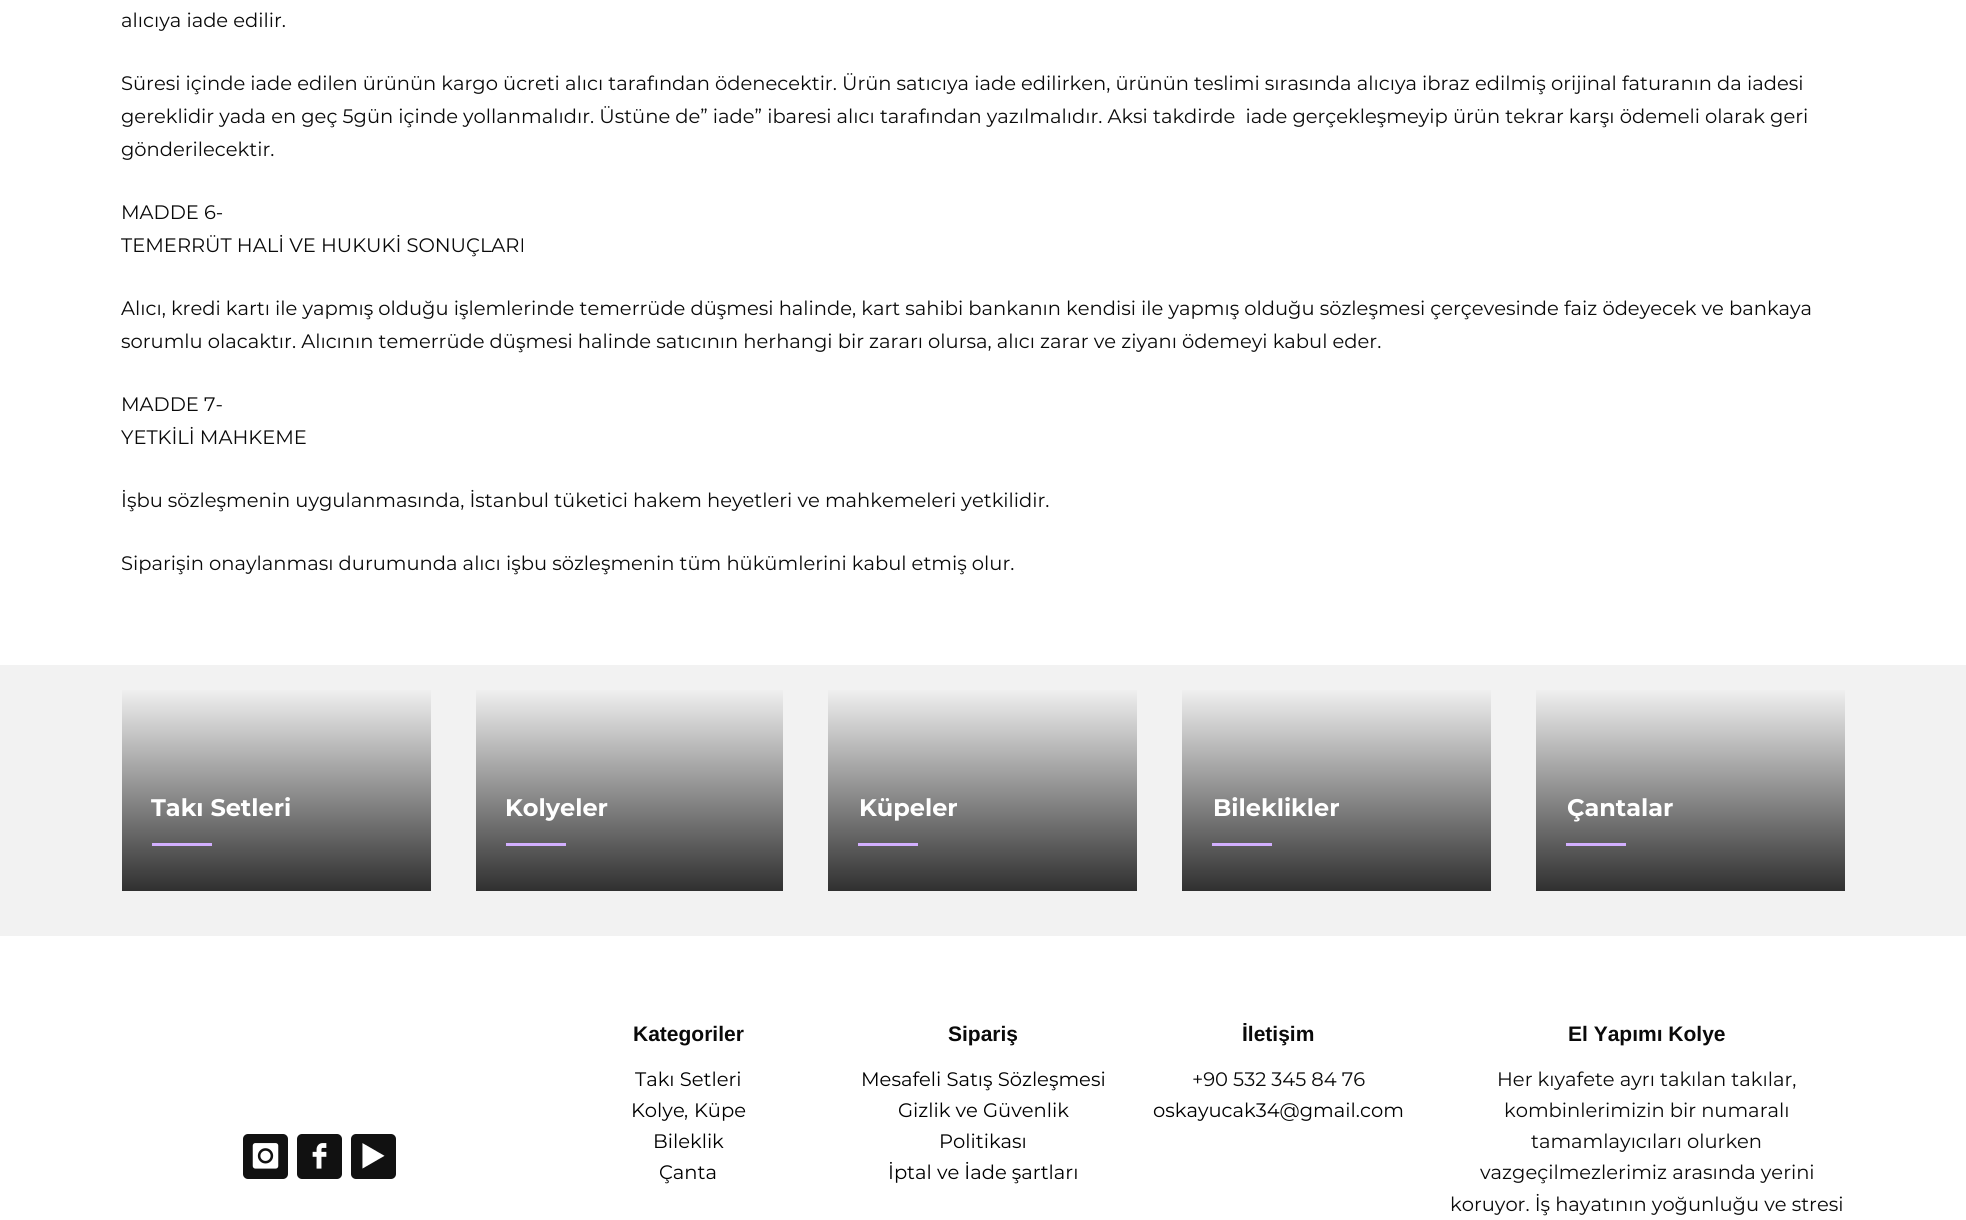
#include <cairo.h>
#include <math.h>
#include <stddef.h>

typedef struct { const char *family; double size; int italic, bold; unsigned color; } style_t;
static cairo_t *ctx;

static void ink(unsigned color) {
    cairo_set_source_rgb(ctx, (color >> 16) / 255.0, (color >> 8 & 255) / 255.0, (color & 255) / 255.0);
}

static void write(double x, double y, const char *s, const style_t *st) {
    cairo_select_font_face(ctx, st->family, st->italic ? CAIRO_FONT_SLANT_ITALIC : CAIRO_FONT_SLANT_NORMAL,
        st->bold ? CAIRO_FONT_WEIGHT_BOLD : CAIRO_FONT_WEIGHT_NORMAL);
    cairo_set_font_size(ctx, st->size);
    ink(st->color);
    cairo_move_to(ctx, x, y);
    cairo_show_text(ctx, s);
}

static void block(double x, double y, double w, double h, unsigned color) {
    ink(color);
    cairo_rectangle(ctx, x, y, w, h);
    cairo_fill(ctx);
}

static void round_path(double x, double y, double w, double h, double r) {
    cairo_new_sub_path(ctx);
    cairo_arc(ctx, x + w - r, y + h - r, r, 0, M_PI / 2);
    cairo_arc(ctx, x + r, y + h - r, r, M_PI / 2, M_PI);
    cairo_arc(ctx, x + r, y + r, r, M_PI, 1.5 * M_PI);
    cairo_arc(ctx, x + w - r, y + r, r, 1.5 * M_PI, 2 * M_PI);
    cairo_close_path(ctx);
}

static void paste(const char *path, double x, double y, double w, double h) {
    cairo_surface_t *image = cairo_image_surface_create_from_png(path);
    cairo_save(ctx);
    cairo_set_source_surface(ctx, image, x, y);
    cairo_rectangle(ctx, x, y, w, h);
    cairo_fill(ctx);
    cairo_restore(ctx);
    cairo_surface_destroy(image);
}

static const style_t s1 = {"Montserrat", 19.5, 0, 0, 0x0a0a0a};
static const style_t s2 = {"Montserrat", 24, 0, 1, 0xffffff};
static const style_t s3 = {"Liberation Sans", 21, 0, 1, 0x0a0a0a};
static const style_t s4 = {"Montserrat", 19.5, 0, 0, 0x000000};

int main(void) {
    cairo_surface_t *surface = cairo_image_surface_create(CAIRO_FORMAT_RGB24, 1966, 1220);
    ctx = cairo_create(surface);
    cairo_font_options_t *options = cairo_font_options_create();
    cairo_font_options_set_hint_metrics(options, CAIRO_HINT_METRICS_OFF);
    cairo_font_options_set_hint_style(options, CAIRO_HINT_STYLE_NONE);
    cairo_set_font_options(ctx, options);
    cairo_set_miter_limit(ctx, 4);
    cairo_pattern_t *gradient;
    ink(0xffffff);
    cairo_paint(ctx);
    write(121, 27, "alıcıya iade edilir.", &s1);
    write(121, 90, "Süresi içinde iade edilen ürünün kargo ücreti alıcı tarafından ödenecektir. Ürün satıcıya iade edilirken, ürünün teslimi sırasında alıcıya ibraz edilmiş orijinal faturanın da iadesi", &s1);
    write(121, 123, "gereklidir yada en geç 5gün içinde yollanmalıdır. Üstüne de” iade” ibaresi alıcı tarafından yazılmalıdır. Aksi takdirde  iade gerçekleşmeyip ürün tekrar karşı ödemeli olarak geri", &s1);
    write(121, 156, "gönderilecektir.", &s1);
    write(121, 219, "MADDE 6-", &s1);
    write(121, 252, "TEMERRÜT HALİ VE HUKUKİ SONUÇLARI", &s1);
    write(121, 315, "Alıcı, kredi kartı ile yapmış olduğu işlemlerinde temerrüde düşmesi halinde, kart sahibi bankanın kendisi ile yapmış olduğu sözleşmesi çerçevesinde faiz ödeyecek ve bankaya", &s1);
    write(121, 348, "sorumlu olacaktır. Alıcının temerrüde düşmesi halinde satıcının herhangi bir zararı olursa, alıcı zarar ve ziyanı ödemeyi kabul eder.", &s1);
    write(121, 411, "MADDE 7-", &s1);
    write(121, 444, "YETKİLİ MAHKEME", &s1);
    write(121, 507, "İşbu sözleşmenin uygulanmasında, İstanbul tüketici hakem heyetleri ve mahkemeleri yetkilidir.", &s1);
    write(121, 570, "Siparişin onaylanması durumunda alıcı işbu sözleşmenin tüm hükümlerini kabul etmiş olur.", &s1);
    block(0, 665, 1966, 271, 0xf2f2f2);
    gradient = cairo_pattern_create_linear(276, 687, 276, 891);
    cairo_pattern_add_color_stop_rgba(gradient, 0, 0.949, 0.949, 0.949, 1);
    cairo_pattern_add_color_stop_rgba(gradient, 1, 0.188, 0.188, 0.188, 1);
    cairo_set_source(ctx, gradient);
    cairo_pattern_destroy(gradient);
    cairo_rectangle(ctx, 122, 690, 309, 201);
    cairo_fill(ctx);
    write(151, 816, "Takı Setleri", &s2);
    block(152, 843, 60, 3, 0xd2afff);
    gradient = cairo_pattern_create_linear(629, 687, 629, 891);
    cairo_pattern_add_color_stop_rgba(gradient, 0, 0.949, 0.949, 0.949, 1);
    cairo_pattern_add_color_stop_rgba(gradient, 1, 0.188, 0.188, 0.188, 1);
    cairo_set_source(ctx, gradient);
    cairo_pattern_destroy(gradient);
    cairo_rectangle(ctx, 476, 690, 307, 201);
    cairo_fill(ctx);
    write(505, 816, "Kolyeler", &s2);
    block(506, 843, 60, 3, 0xd2afff);
    gradient = cairo_pattern_create_linear(983, 687, 983, 891);
    cairo_pattern_add_color_stop_rgba(gradient, 0, 0.949, 0.949, 0.949, 1);
    cairo_pattern_add_color_stop_rgba(gradient, 1, 0.188, 0.188, 0.188, 1);
    cairo_set_source(ctx, gradient);
    cairo_pattern_destroy(gradient);
    cairo_rectangle(ctx, 828, 690, 309, 201);
    cairo_fill(ctx);
    write(859, 816, "Küpeler", &s2);
    block(858, 843, 60, 3, 0xd2afff);
    gradient = cairo_pattern_create_linear(1337, 687, 1337, 891);
    cairo_pattern_add_color_stop_rgba(gradient, 0, 0.949, 0.949, 0.949, 1);
    cairo_pattern_add_color_stop_rgba(gradient, 1, 0.188, 0.188, 0.188, 1);
    cairo_set_source(ctx, gradient);
    cairo_pattern_destroy(gradient);
    cairo_rectangle(ctx, 1182, 690, 309, 201);
    cairo_fill(ctx);
    write(1213, 816, "Bileklikler", &s2);
    block(1212, 843, 60, 3, 0xd2afff);
    gradient = cairo_pattern_create_linear(1691, 687, 1691, 891);
    cairo_pattern_add_color_stop_rgba(gradient, 0, 0.949, 0.949, 0.949, 1);
    cairo_pattern_add_color_stop_rgba(gradient, 1, 0.188, 0.188, 0.188, 1);
    cairo_set_source(ctx, gradient);
    cairo_pattern_destroy(gradient);
    cairo_rectangle(ctx, 1536, 690, 309, 201);
    cairo_fill(ctx);
    write(1567, 816, "Çantalar", &s2);
    block(1566, 843, 60, 3, 0xd2afff);
    ink(0x111111);
    round_path(243, 1134, 45, 45, 5);
    cairo_fill(ctx);
    paste("pic1.png", 252, 1143, 27, 26);
    round_path(297, 1134, 45, 45, 5);
    cairo_fill(ctx);
    paste("pic2.png", 312, 1143, 15, 26);
    round_path(351, 1134, 45, 45, 5);
    cairo_fill(ctx);
    paste("pic3.png", 362, 1143, 23, 26);
    write(633, 1041, "Kategoriler", &s3);
    write(635, 1086, "Takı Setleri", &s4);
    write(631, 1117, "Kolye", &s4);
    write(684, 1117, ",", &s1);
    write(694, 1117, "Küpe", &s4);
    write(653, 1148, "Bileklik", &s4);
    write(659, 1179, "Çanta", &s4);
    write(948, 1041, "Sipariş", &s3);
    write(861, 1086, "Mesafeli Satış Sözleşmesi", &s4);
    write(898, 1117, "Gizlik ve Güvenlik", &s4);
    write(939, 1148, "Politikası", &s4);
    write(888, 1179, "İptal ve İade şartları", &s4);
    write(1242, 1041, "İletişim", &s3);
    write(1192, 1086, "+90 532 345 84 76", &s1);
    write(1153, 1117, "oskayucak34@gmail.com", &s4);
    write(1568, 1041, "El Yapımı Kolye", &s3);
    write(1497, 1086, "Her kıyafete ayrı takılan takılar,", &s1);
    write(1504, 1117, "kombinlerimizin bir numaralı", &s1);
    write(1531, 1148, "tamamlayıcıları olurken", &s1);
    write(1480, 1179, "vazgeçilmezlerimiz arasında yerini", &s1);
    write(1450, 1211, "koruyor. İş hayatının yoğunluğu ve stresi", &s1);
    cairo_surface_write_to_png(surface, "screenshot.png");
    cairo_font_options_destroy(options);
    cairo_destroy(ctx);
    cairo_surface_destroy(surface);
    return 0;
}
